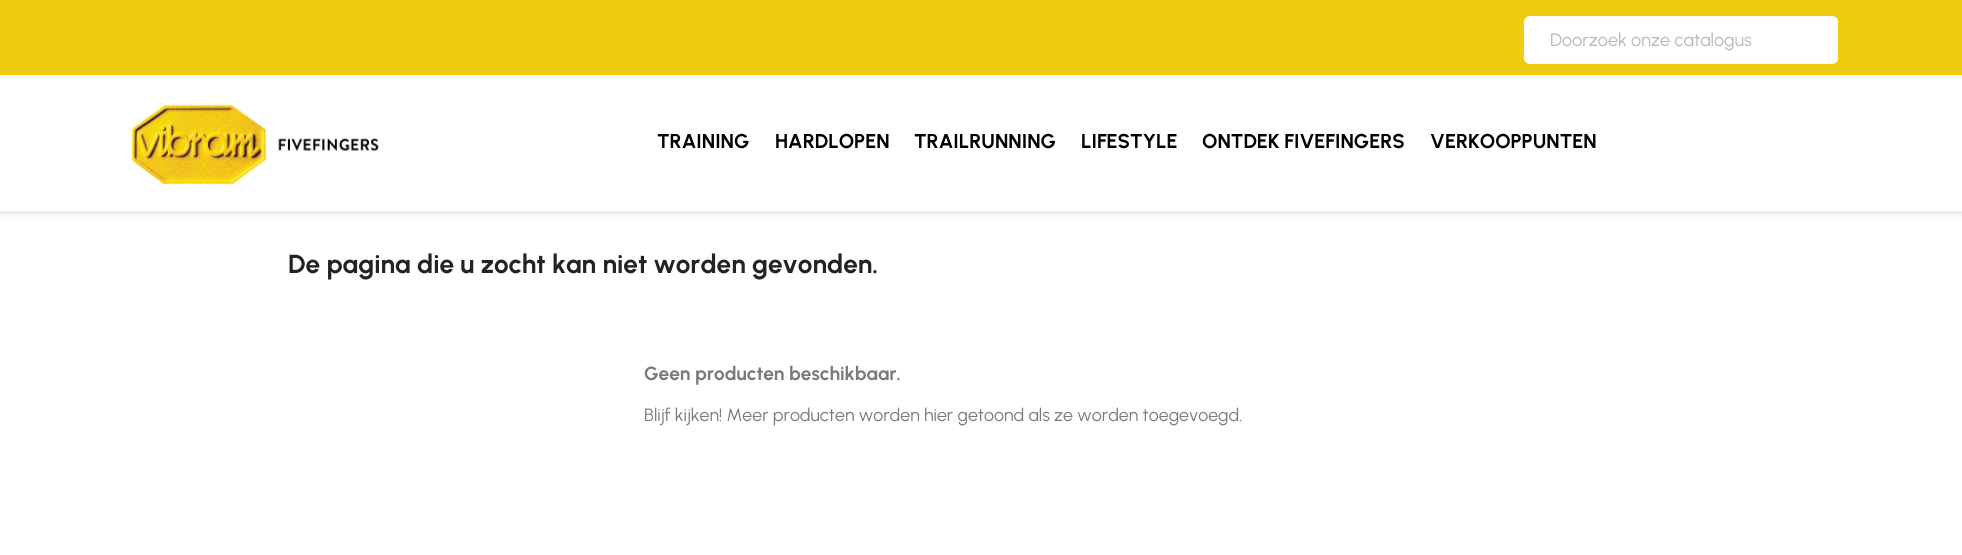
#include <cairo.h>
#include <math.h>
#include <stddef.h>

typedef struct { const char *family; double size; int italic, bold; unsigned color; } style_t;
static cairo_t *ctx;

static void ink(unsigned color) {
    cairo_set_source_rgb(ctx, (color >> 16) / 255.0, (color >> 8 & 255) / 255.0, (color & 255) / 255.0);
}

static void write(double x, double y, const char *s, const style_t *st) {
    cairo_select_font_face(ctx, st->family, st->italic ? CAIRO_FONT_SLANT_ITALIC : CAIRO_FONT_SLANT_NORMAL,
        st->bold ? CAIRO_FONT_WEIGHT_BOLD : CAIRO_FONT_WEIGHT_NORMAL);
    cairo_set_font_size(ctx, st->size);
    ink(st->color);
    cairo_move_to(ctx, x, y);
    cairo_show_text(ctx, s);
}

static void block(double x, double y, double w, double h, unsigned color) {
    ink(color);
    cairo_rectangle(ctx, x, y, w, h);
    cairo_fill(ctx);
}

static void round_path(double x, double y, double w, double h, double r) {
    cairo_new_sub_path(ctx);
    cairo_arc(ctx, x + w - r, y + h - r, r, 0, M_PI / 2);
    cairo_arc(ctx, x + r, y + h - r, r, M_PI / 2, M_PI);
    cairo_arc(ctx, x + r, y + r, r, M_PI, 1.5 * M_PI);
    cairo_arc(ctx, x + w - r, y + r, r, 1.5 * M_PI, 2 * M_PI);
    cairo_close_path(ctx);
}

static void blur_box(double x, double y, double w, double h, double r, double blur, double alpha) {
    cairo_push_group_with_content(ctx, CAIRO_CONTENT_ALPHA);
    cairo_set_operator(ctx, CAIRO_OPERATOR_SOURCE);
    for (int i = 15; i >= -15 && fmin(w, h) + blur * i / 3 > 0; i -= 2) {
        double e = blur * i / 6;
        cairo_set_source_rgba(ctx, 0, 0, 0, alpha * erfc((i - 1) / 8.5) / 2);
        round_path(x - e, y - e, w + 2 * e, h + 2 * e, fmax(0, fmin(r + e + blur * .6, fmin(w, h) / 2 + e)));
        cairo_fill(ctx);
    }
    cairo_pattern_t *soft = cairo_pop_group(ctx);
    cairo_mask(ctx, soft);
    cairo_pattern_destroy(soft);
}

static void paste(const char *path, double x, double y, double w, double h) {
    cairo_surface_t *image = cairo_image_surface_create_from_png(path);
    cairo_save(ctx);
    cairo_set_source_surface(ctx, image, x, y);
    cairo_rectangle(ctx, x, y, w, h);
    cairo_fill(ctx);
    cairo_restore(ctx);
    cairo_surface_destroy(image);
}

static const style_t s1 = {"Urbanist", 18, 0, 0, 0xb7b7b7};
static const style_t s2 = {"Urbanist", 20, 0, 1, 0x000000};
static const style_t s3 = {"Urbanist", 26.1, 0, 1, 0x232323};
static const style_t s4 = {"Urbanist", 19, 0, 1, 0x7a7a7a};
static const style_t s5 = {"Urbanist", 17.8, 0, 0, 0x7a7a7a};

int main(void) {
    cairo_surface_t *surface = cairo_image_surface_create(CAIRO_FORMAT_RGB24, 1962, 555);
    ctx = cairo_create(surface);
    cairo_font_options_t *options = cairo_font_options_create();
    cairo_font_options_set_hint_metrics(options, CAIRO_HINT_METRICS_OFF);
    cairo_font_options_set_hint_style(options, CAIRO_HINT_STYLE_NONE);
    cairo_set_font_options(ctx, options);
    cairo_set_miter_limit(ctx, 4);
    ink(0xffffff);
    cairo_paint(ctx);
    ink(0x000000);
    blur_box(0, 3, 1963, 211, 0, 3, 0.11);
    block(0, 0, 1962, 75, 0xedcd0e);
    ink(0xffffff);
    round_path(1524, 16, 314, 48, 6);
    cairo_fill(ctx);
    write(1550, 46, "Doorzoek onze catalogus", &s1);
    block(0, 75, 1962, 136, 0xffffff);
    paste("pic1.png", 131, 104, 248, 81);
    write(657, 148, "TRAINING", &s2);
    write(775, 148, "HARDLOPEN", &s2);
    write(914, 148, "TRAILRUNNING", &s2);
    write(1081, 148, "LIFESTYLE", &s2);
    write(1202, 148, "ONTDEK FIVEFINGERS", &s2);
    write(1430, 148, "VERKOOPPUNTEN", &s2);
    write(288, 273, "De pagina die u zocht kan niet worden gevonden.", &s3);
    write(644, 380, "Geen producten beschikbaar.", &s4);
    write(644, 421, "Blijf kijken! Meer producten worden hier getoond als ze worden toegevoegd.", &s5);
    cairo_surface_write_to_png(surface, "screenshot.png");
    cairo_font_options_destroy(options);
    cairo_destroy(ctx);
    cairo_surface_destroy(surface);
    return 0;
}
